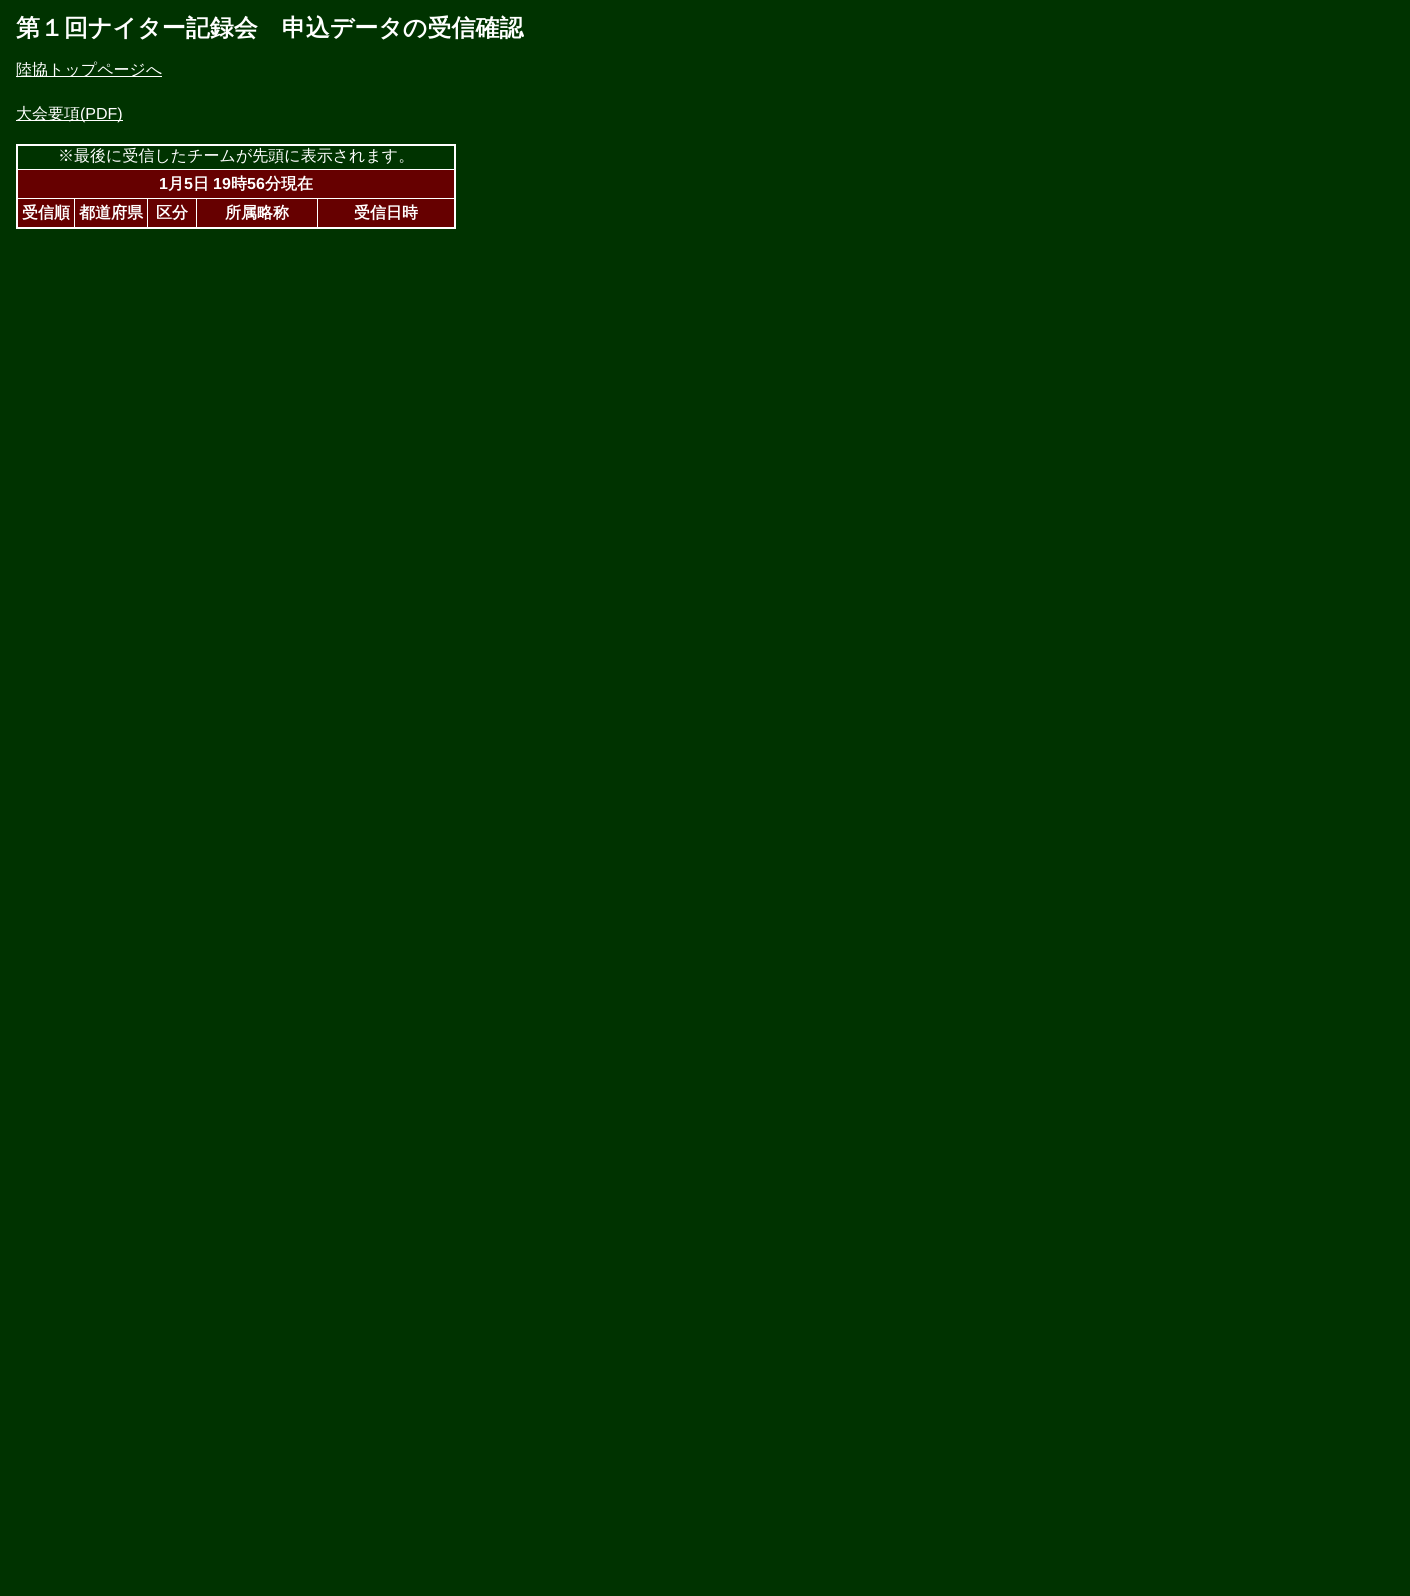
#include <cairo.h>
#include <math.h>
#include <stddef.h>

typedef struct { const char *family; double size; int italic, bold; unsigned color; } style_t;
static cairo_t *ctx;

static void ink(unsigned color) {
    cairo_set_source_rgb(ctx, (color >> 16) / 255.0, (color >> 8 & 255) / 255.0, (color & 255) / 255.0);
}

static void write(double x, double y, const char *s, const style_t *st) {
    cairo_select_font_face(ctx, st->family, st->italic ? CAIRO_FONT_SLANT_ITALIC : CAIRO_FONT_SLANT_NORMAL,
        st->bold ? CAIRO_FONT_WEIGHT_BOLD : CAIRO_FONT_WEIGHT_NORMAL);
    cairo_set_font_size(ctx, st->size);
    ink(st->color);
    cairo_move_to(ctx, x, y);
    cairo_show_text(ctx, s);
}

static void block(double x, double y, double w, double h, unsigned color) {
    ink(color);
    cairo_rectangle(ctx, x, y, w, h);
    cairo_fill(ctx);
}

static const style_t s1 = {"WenQuanYi Zen Hei", 24, 0, 1, 0xffffff};
static const style_t s2 = {"WenQuanYi Zen Hei Medium", 16, 0, 0, 0xffffff};
static const style_t s3 = {"Liberation Sans", 16, 0, 0, 0xffffff};
static const style_t s4 = {"Liberation Sans", 16, 0, 1, 0xffffff};
static const style_t s5 = {"WenQuanYi Zen Hei", 16, 0, 1, 0xffffff};

int main(void) {
    cairo_surface_t *surface = cairo_image_surface_create(CAIRO_FORMAT_RGB24, 1410, 1596);
    ctx = cairo_create(surface);
    cairo_font_options_t *options = cairo_font_options_create();
    cairo_font_options_set_hint_metrics(options, CAIRO_HINT_METRICS_OFF);
    cairo_font_options_set_hint_style(options, CAIRO_HINT_STYLE_NONE);
    cairo_set_font_options(ctx, options);
    cairo_set_miter_limit(ctx, 4);
    ink(0x003300);
    cairo_paint(ctx);
    write(16, 36, "第１回ナイター記録会　申込データの受信確認", &s1);
    block(16, 76, 146, 1, 0xffffff);
    write(16, 75, "陸協トップページへ", &s2);
    block(16, 120, 107, 1, 0xffffff);
    write(16, 119, "大会要項", &s2);
    write(80, 119, "(PDF)", &s3);
    block(16, 144, 440, 2, 0xffffff);
    block(17, 169, 439, 1, 0xffffff);
    block(317, 198, 139, 1, 0xffffff);
    block(454, 144, 2, 85, 0xffffff);
    block(317, 198, 1, 31, 0xffffff);
    block(196, 198, 122, 1, 0xffffff);
    block(196, 198, 1, 31, 0xffffff);
    block(147, 198, 50, 1, 0xffffff);
    block(147, 198, 1, 31, 0xffffff);
    block(74, 198, 74, 1, 0xffffff);
    block(74, 198, 1, 31, 0xffffff);
    block(16, 227, 440, 2, 0xffffff);
    block(17, 198, 58, 1, 0xffffff);
    block(16, 144, 2, 85, 0xffffff);
    write(58, 161, "※最後に受信したチームが先頭に表示されます。", &s2);
    block(18, 170, 436, 28, 0x660000);
    write(159, 189, "1", &s4);
    write(168, 189, "月", &s5);
    write(184, 189, "5", &s4);
    write(193, 189, "日", &s5);
    write(213, 189, "19", &s4);
    write(231, 189, "時", &s5);
    write(247, 189, "56", &s4);
    write(265, 189, "分現在", &s5);
    block(18, 199, 56, 28, 0x660000);
    write(22, 218, "受信順", &s5);
    block(75, 199, 72, 28, 0x660000);
    write(79, 218, "都道府県", &s5);
    block(148, 199, 48, 28, 0x660000);
    write(156, 218, "区分", &s5);
    block(197, 199, 120, 28, 0x660000);
    write(225, 218, "所属略称", &s5);
    block(318, 199, 136, 28, 0x660000);
    write(354, 218, "受信日時", &s5);
    cairo_surface_write_to_png(surface, "screenshot.png");
    cairo_font_options_destroy(options);
    cairo_destroy(ctx);
    cairo_surface_destroy(surface);
    return 0;
}
